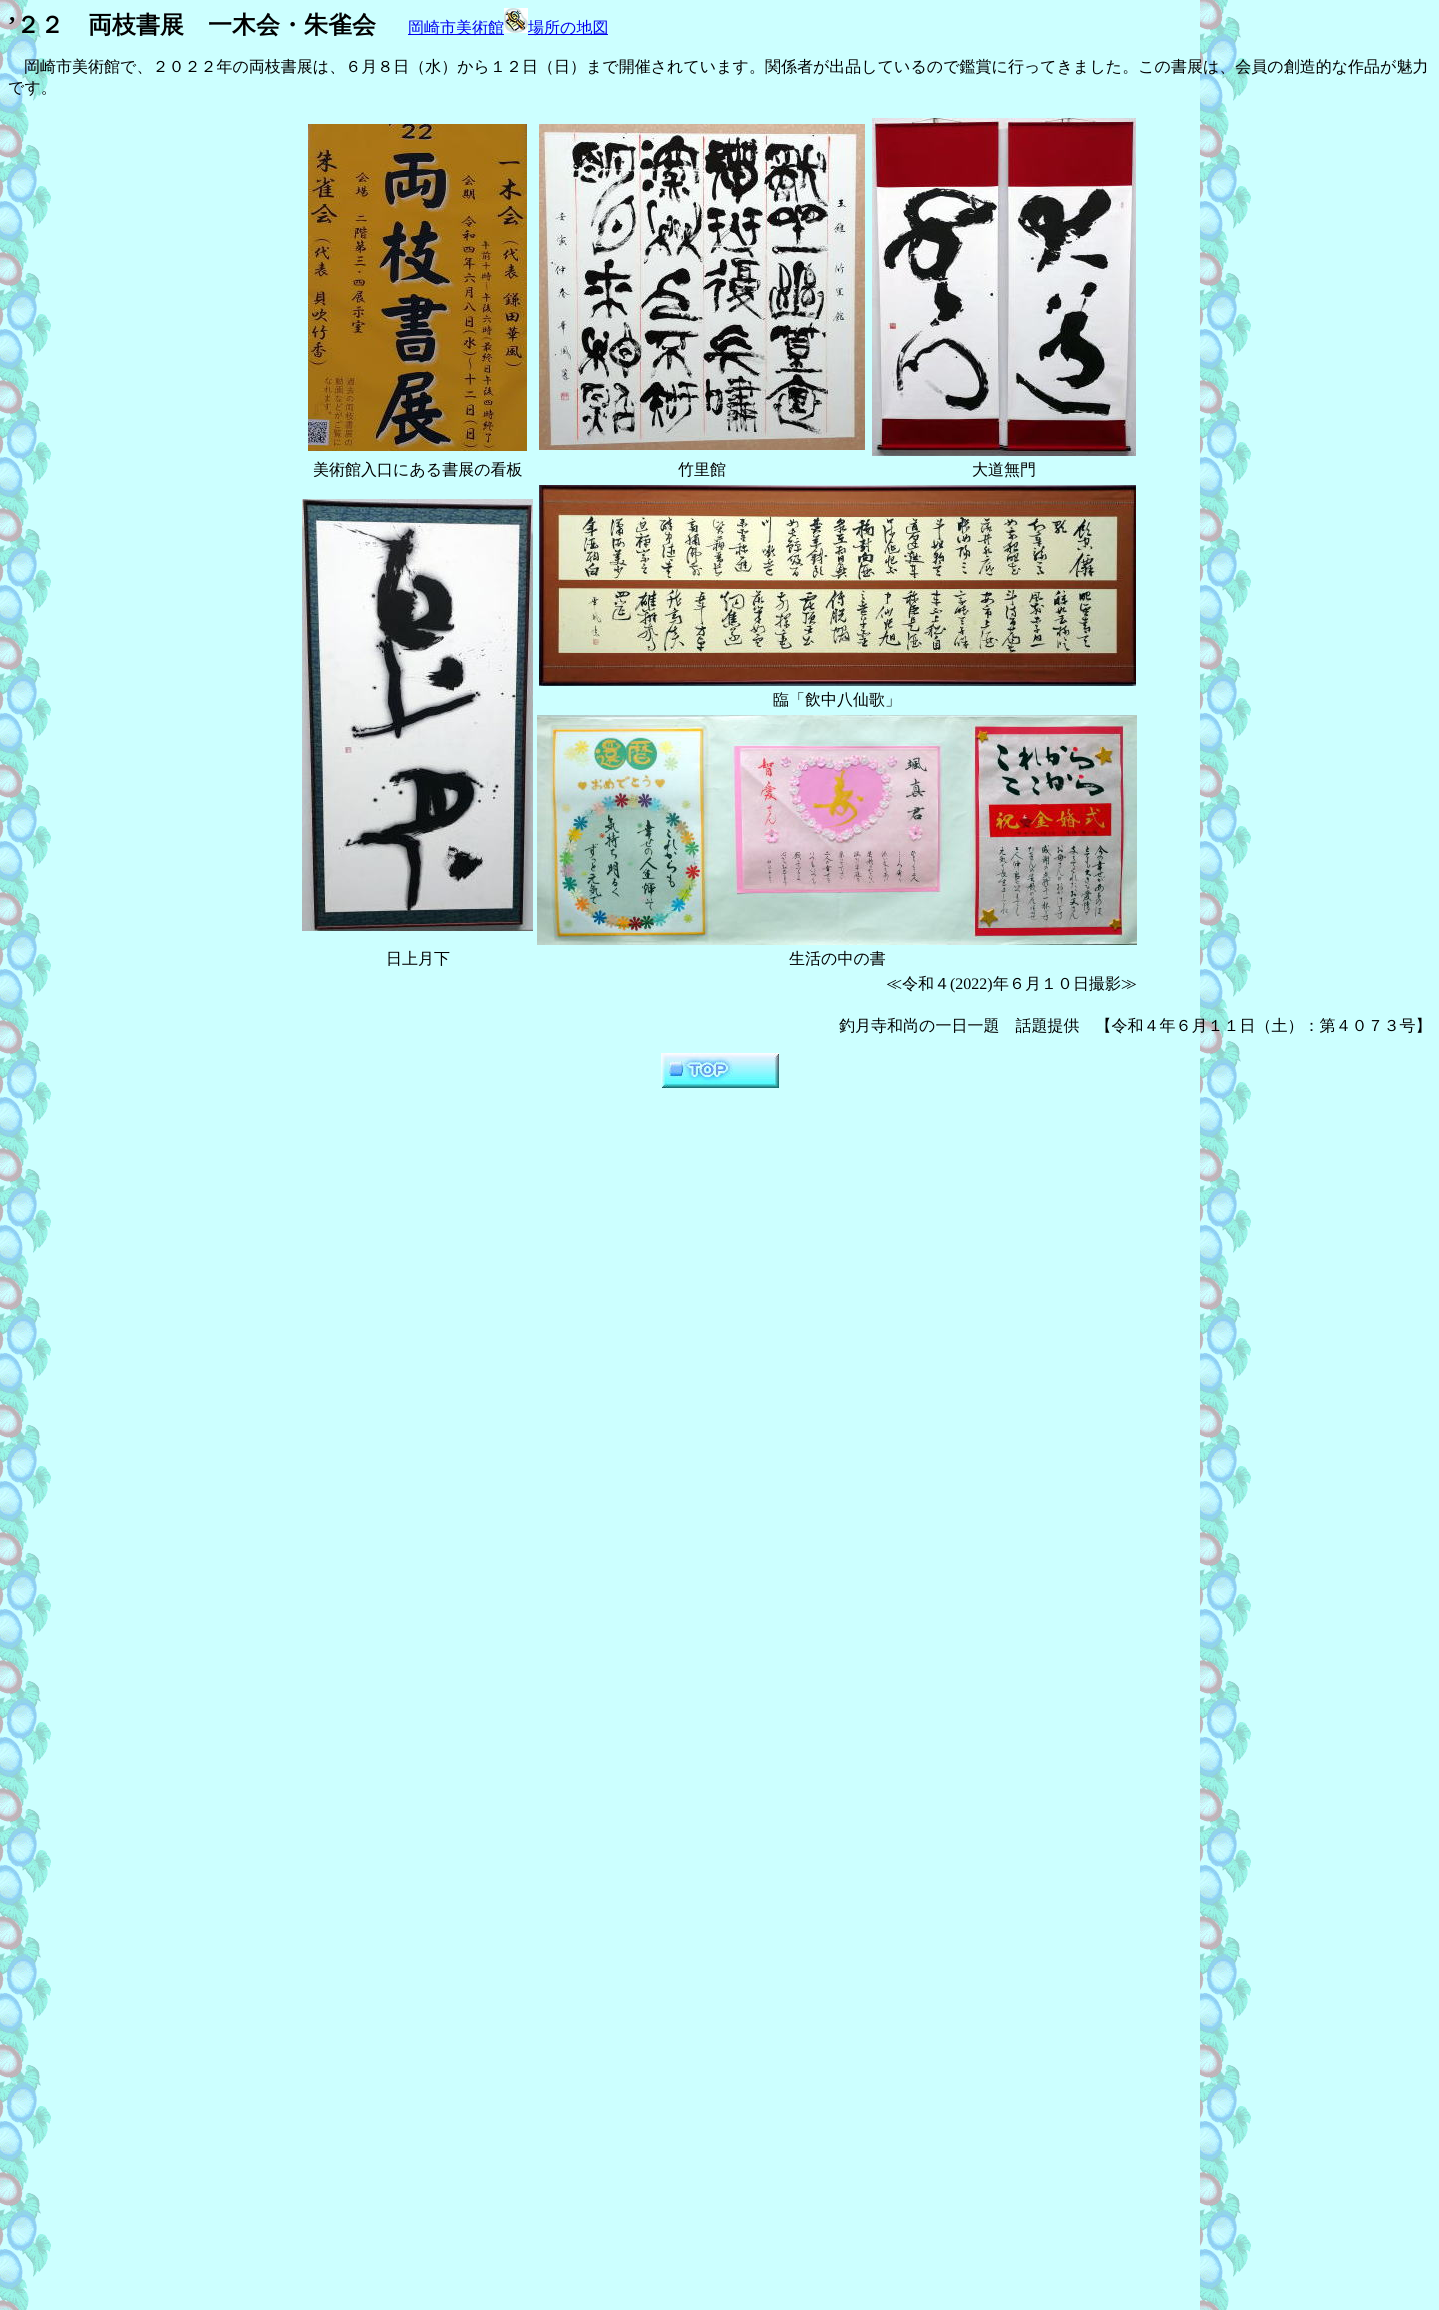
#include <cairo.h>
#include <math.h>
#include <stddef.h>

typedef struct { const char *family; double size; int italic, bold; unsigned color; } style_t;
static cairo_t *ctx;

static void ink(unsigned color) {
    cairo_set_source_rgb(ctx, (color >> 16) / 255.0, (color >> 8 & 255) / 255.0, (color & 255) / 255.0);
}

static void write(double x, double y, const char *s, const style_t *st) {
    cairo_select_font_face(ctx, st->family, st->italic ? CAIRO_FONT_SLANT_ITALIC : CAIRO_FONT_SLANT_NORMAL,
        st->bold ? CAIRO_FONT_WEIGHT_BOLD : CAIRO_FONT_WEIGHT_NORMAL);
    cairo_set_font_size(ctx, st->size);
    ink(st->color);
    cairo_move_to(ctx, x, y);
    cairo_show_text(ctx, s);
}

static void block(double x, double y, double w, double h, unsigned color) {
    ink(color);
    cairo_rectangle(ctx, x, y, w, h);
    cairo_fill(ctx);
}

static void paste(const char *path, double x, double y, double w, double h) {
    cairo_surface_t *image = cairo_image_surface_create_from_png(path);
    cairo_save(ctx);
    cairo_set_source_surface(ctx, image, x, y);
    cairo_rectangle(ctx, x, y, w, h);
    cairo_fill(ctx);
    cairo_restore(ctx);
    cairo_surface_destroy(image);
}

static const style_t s1 = {"Liberation Serif", 24, 0, 1, 0x000000};
static const style_t s2 = {"WenQuanYi Zen Hei", 24, 0, 1, 0x000000};
static const style_t s3 = {"WenQuanYi Zen Hei Medium", 16, 0, 0, 0x0000ee};
static const style_t s4 = {"WenQuanYi Zen Hei Medium", 16, 0, 0, 0x000000};
static const style_t s5 = {"Liberation Serif", 16, 0, 0, 0x000000};

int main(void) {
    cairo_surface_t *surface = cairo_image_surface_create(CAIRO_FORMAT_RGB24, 1439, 2310);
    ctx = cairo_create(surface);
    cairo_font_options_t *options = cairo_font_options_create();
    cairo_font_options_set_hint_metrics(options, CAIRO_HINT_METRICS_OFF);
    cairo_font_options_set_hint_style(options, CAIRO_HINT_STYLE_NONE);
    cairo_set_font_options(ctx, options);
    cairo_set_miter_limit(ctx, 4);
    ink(0xffffff);
    cairo_paint(ctx);
    paste("pic1.png", 0, 0, 1439, 2310);
    write(8, 33, "’", &s1);
    write(16, 33, "２２　両枝書展　一木会・朱雀会", &s2);
    block(408, 34, 96, 1, 0x0000ee);
    write(408, 33, "岡崎市美術館", &s3);
    paste("pic2.png", 504, 8, 24, 25);
    block(528, 34, 80, 1, 0x0000ee);
    write(528, 33, "場所の地図", &s3);
    write(24, 72, "岡崎市美術館で、２０２２年の両枝書展は、６月８日（水）から１２日（日）まで開催されています。関係者が出品しているので鑑賞に行ってきました。この書展は、会員の創造的な作品が魅力", &s4);
    write(8, 93, "です。", &s4);
    paste("pic3.png", 308, 124, 219, 327);
    paste("pic4.png", 539, 124, 326, 326);
    paste("pic5.png", 872, 118, 264, 338);
    write(313, 475, "美術館入口にある書展の看板", &s4);
    write(678, 475, "竹里館", &s4);
    write(972, 475, "大道無門", &s4);
    paste("pic6.png", 302, 499, 231, 432);
    paste("pic7.png", 539, 485, 597, 201);
    write(773, 705, "臨「飲中八仙歌」", &s4);
    paste("pic8.png", 537, 715, 600, 230);
    write(386, 964, "日上月下", &s4);
    write(789, 964, "生活の中の書", &s4);
    write(886, 989, "≪令和４", &s4);
    write(950, 989, "(2022)", &s5);
    write(993, 989, "年６月１０日撮影≫", &s4);
    write(839, 1031, "釣月寺和尚の一日一題　話題提供　【令和４年６月１１日（土）：第４０７３号】", &s4);
    paste("pic9.png", 661, 1053, 118, 35);
    cairo_surface_write_to_png(surface, "screenshot.png");
    cairo_font_options_destroy(options);
    cairo_destroy(ctx);
    cairo_surface_destroy(surface);
    return 0;
}
